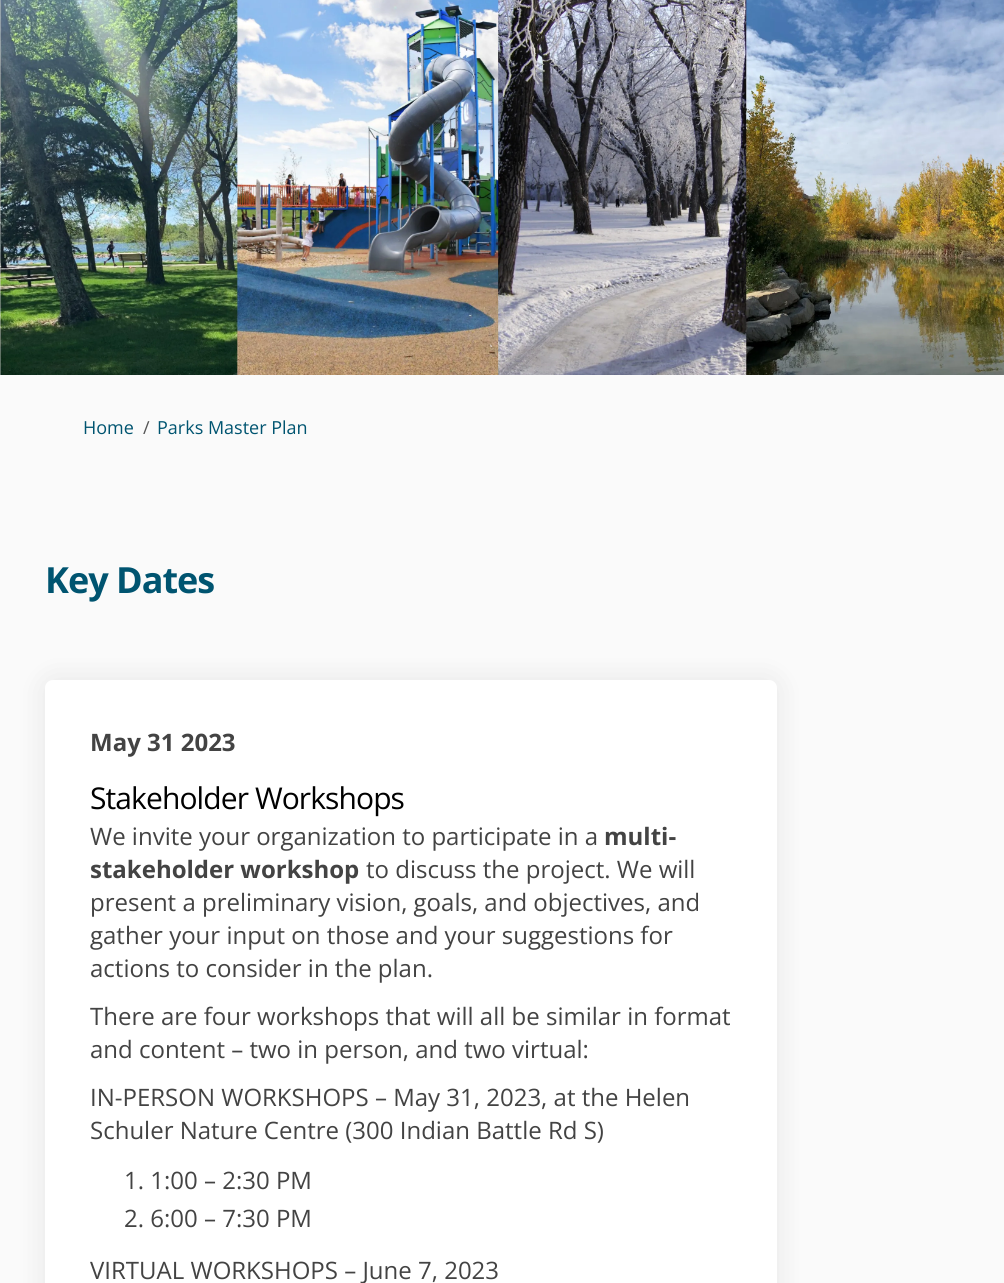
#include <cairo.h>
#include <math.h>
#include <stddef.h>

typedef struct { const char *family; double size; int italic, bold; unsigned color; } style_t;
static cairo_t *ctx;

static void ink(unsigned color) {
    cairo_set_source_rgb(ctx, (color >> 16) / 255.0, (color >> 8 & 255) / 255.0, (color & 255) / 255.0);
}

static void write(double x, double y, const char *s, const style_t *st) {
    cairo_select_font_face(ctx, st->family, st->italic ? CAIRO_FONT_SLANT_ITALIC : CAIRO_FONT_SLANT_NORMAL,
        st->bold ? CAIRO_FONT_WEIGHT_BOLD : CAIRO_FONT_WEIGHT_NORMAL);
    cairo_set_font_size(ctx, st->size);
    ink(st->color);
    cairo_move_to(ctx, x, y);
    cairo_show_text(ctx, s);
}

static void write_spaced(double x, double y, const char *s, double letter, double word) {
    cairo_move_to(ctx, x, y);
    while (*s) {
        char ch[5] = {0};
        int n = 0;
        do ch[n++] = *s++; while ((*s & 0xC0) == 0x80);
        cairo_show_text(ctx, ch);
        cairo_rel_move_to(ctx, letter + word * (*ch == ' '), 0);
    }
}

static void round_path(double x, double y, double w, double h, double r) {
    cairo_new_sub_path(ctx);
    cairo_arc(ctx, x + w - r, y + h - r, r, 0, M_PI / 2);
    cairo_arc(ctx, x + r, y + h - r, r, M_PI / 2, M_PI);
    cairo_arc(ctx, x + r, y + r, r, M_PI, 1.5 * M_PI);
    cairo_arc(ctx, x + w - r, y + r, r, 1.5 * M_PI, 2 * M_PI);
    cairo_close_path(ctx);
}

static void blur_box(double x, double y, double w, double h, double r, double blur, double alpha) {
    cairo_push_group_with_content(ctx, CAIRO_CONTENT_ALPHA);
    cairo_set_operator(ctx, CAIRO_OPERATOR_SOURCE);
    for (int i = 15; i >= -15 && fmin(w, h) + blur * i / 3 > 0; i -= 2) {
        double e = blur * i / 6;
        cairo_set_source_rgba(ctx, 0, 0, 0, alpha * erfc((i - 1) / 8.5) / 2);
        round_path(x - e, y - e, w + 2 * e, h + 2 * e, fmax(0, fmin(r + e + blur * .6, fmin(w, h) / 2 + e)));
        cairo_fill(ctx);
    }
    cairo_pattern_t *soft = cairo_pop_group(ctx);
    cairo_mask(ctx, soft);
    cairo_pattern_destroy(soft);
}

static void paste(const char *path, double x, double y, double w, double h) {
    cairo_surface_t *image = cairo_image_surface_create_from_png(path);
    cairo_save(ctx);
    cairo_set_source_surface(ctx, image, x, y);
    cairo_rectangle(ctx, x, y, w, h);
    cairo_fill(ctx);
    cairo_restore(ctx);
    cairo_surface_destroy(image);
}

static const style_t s1 = {"Open Sans", 18, 0, 0, 0x005470};
static const style_t s2 = {"Open Sans", 18, 0, 0, 0x555555};
static const style_t s3 = {"Open Sans", 24, 0, 1, 0x434343};
static const style_t s4 = {"Open Sans", 24, 0, 0, 0x434343};

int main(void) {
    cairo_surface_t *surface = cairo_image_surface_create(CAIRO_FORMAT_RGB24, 1004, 1283);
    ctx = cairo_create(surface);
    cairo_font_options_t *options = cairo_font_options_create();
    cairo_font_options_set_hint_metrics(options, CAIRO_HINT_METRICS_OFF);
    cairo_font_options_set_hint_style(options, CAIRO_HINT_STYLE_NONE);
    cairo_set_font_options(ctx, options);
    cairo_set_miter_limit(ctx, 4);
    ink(0xfafafa);
    cairo_paint(ctx);
    paste("pic1.png", 0, 0, 1004, 375);
    write(83, 434, "Home", &s1);
    write(143, 434, "/", &s2);
    write(157, 434, "Parks Master Plan", &s1);
    cairo_select_font_face(ctx, "Open Sans", CAIRO_FONT_SLANT_NORMAL, CAIRO_FONT_WEIGHT_BOLD);
    cairo_set_font_size(ctx, 36);
    write_spaced(45, 593, "Key Dates", -1, 0);
    ink(0x000000);
    blur_box(45, 680, 732, 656, 8, 15, 0.08);
    ink(0xffffff);
    round_path(45, 680, 732, 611, 8);
    cairo_fill(ctx);
    write(90, 751, "May 31 2023", &s3);
    cairo_select_font_face(ctx, "Open Sans", CAIRO_FONT_SLANT_NORMAL, CAIRO_FONT_WEIGHT_NORMAL);
    cairo_set_font_size(ctx, 30);
    ink(0x000000);
    write_spaced(90, 809, "Stakeholder Workshops", -0.9, 0);
    write(90, 845, "We invite your organization to participate in a", &s4);
    write(604, 845, "multi-", &s3);
    write(90, 878, "stakeholder workshop", &s3);
    write(366, 878, "to discuss the project. We will", &s4);
    write(90, 911, "present a preliminary vision, goals, and objectives, and", &s4);
    write(90, 944, "gather your input on those and your suggestions for", &s4);
    write(90, 977, "actions to consider in the plan.", &s4);
    write(90, 1025, "There are four workshops that will all be similar in format", &s4);
    write(90, 1058, "and content – two in person, and two virtual:", &s4);
    write(90, 1106, "IN-PERSON WORKSHOPS – May 31, 2023, at the Helen", &s4);
    write(90, 1139, "Schuler Nature Centre (300 Indian Battle Rd S)", &s4);
    write(124, 1189, "1. 1:00 – 2:30 PM", &s4);
    write(124, 1227, "2. 6:00 – 7:30 PM", &s4);
    write(90, 1279, "VIRTUAL WORKSHOPS – June 7, 2023", &s4);
    cairo_surface_write_to_png(surface, "screenshot.png");
    cairo_font_options_destroy(options);
    cairo_destroy(ctx);
    cairo_surface_destroy(surface);
    return 0;
}
